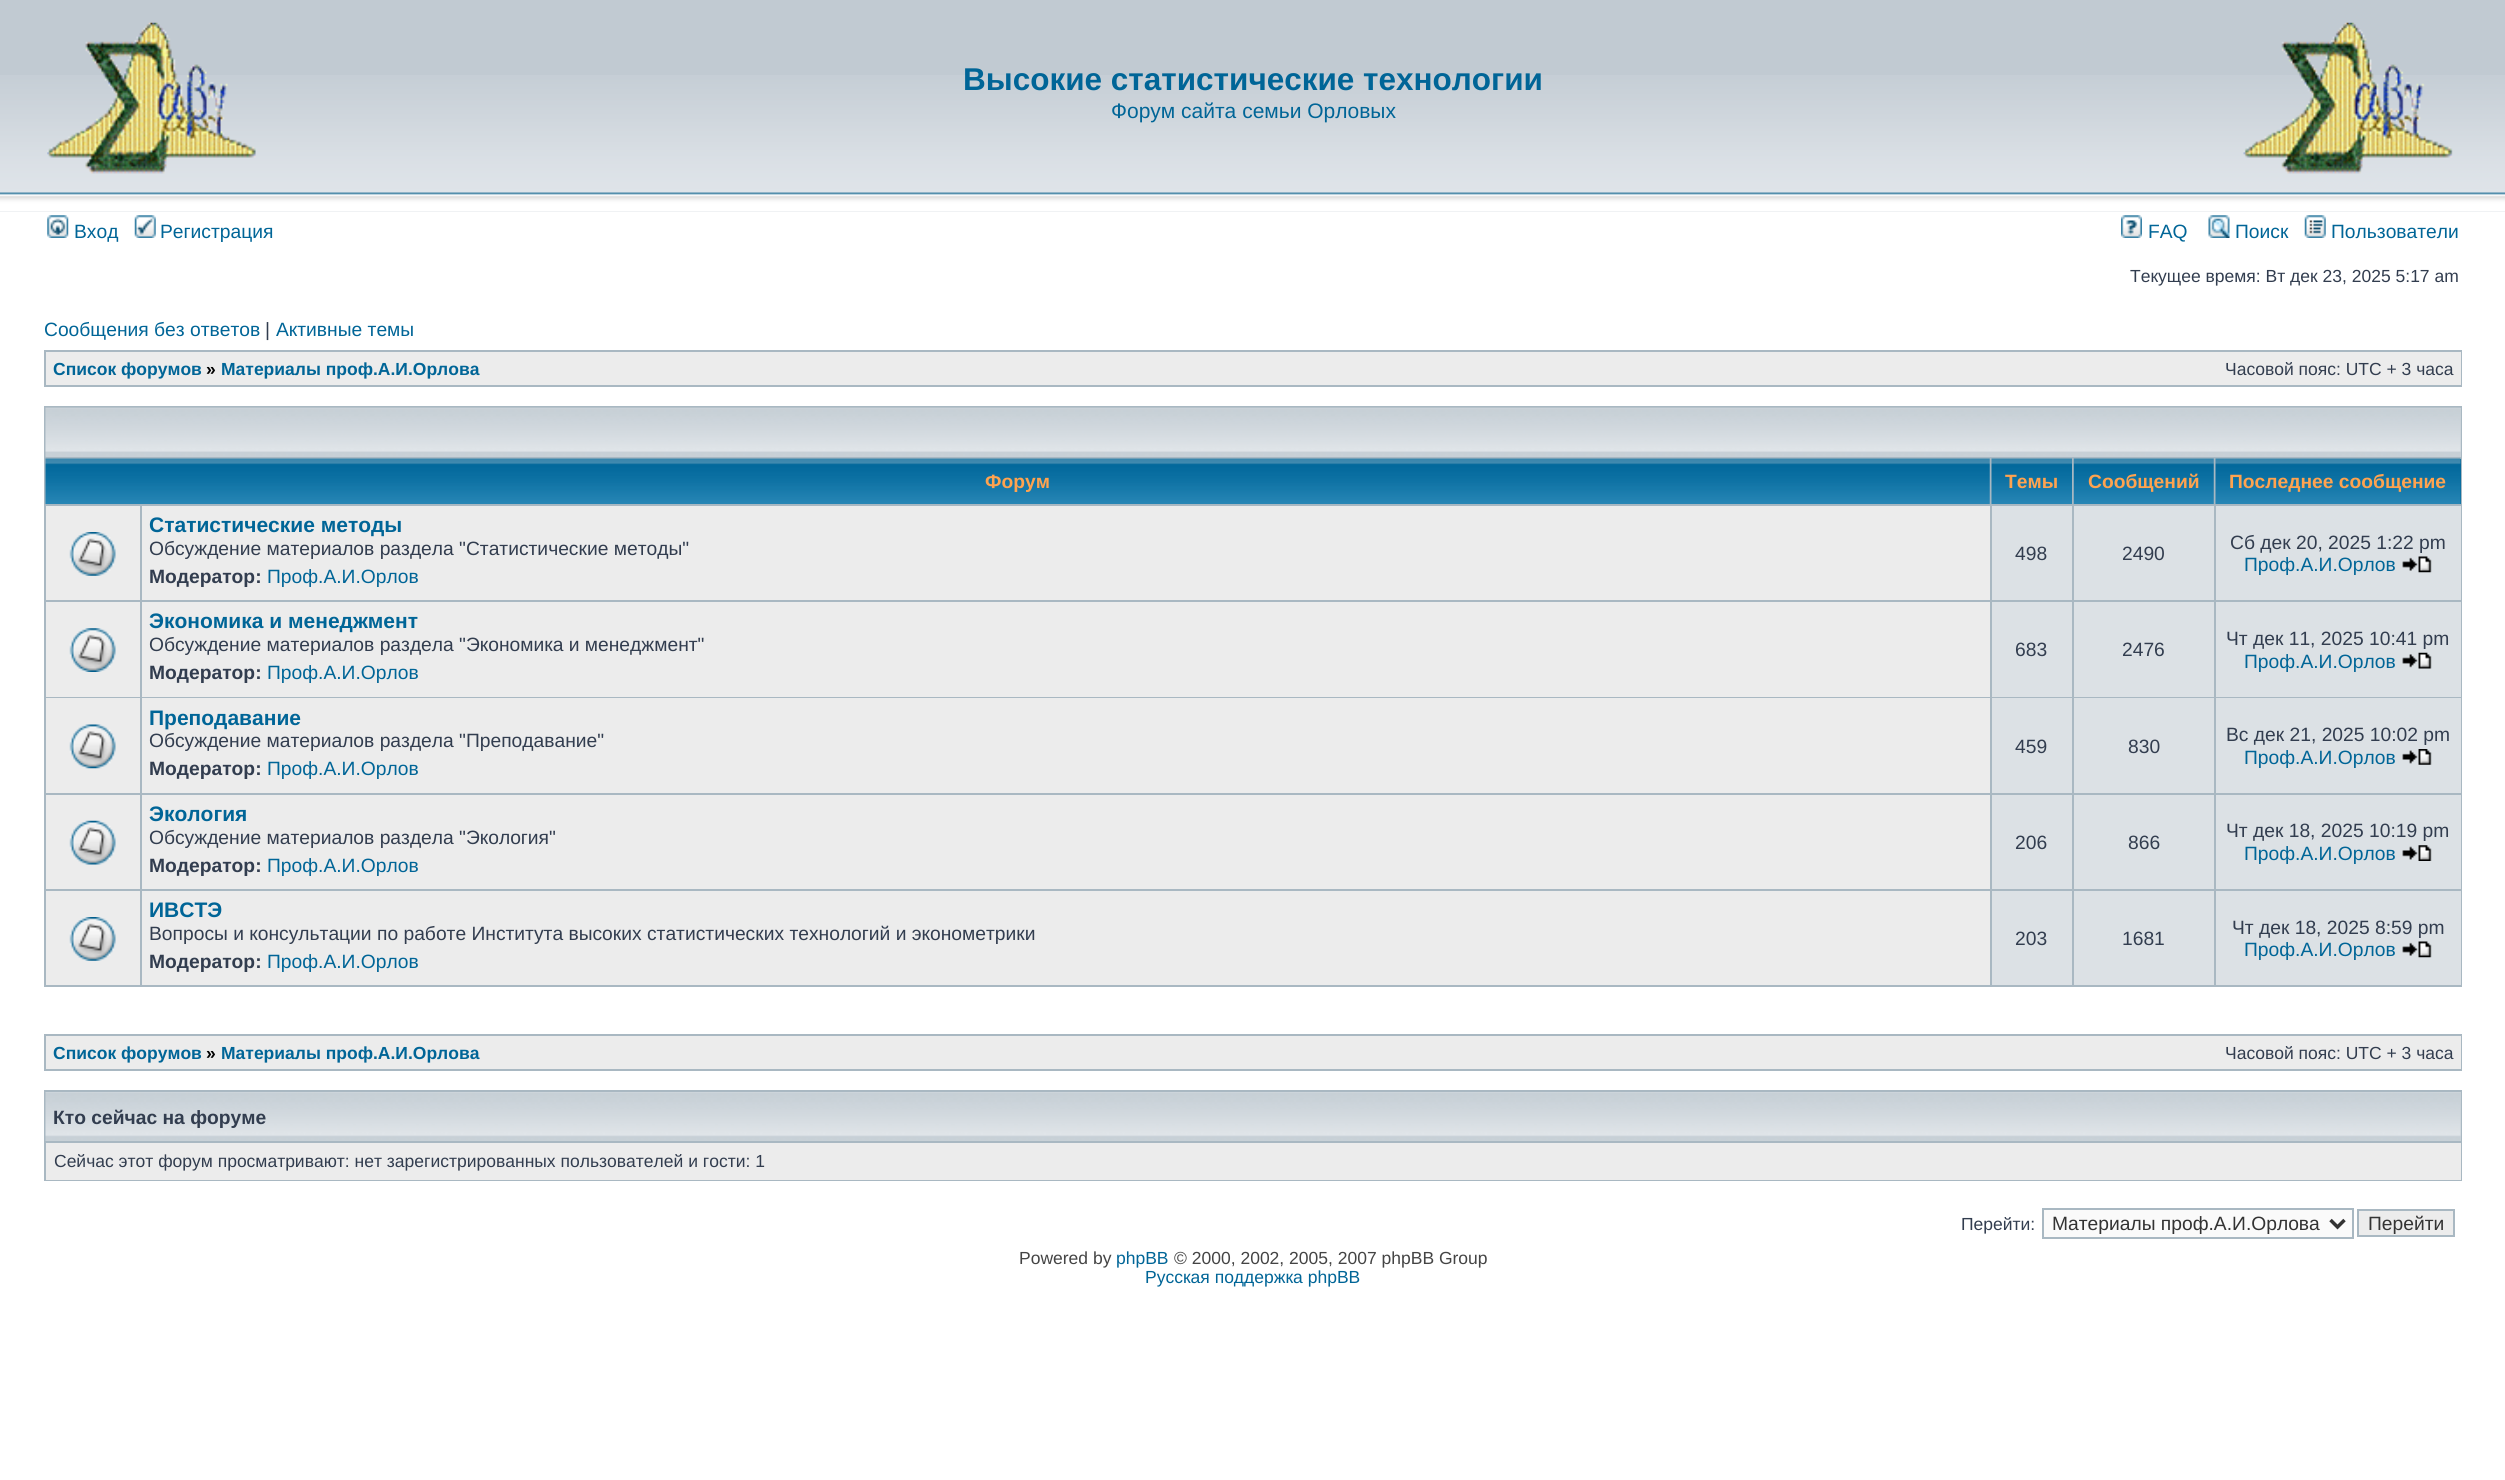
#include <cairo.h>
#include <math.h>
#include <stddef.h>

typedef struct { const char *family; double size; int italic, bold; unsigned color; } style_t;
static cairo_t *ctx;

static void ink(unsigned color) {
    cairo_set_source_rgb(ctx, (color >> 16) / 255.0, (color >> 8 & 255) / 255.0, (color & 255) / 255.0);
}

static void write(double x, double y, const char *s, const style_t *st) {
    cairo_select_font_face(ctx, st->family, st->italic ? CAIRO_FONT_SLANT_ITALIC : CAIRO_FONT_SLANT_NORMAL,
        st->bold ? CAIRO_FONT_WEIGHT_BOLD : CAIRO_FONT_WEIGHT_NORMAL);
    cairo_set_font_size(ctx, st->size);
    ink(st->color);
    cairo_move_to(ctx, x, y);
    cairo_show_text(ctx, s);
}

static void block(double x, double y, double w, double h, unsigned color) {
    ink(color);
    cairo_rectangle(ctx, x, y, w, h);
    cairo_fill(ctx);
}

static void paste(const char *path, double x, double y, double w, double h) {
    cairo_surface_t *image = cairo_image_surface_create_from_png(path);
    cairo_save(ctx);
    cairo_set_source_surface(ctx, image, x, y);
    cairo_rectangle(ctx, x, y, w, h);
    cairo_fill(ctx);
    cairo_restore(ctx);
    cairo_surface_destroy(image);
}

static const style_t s1 = {"Liberation Sans", 31.5, 0, 1, 0x006597};
static const style_t s2 = {"Liberation Sans", 21, 0, 0, 0x006597};
static const style_t s3 = {"Liberation Sans", 19.25, 0, 0, 0x006597};
static const style_t s4 = {"Liberation Sans", 17.5, 0, 0, 0x323d4f};
static const style_t s5 = {"Liberation Sans", 19.25, 0, 0, 0x323d4f};
static const style_t s6 = {"Liberation Sans", 17.5, 0, 1, 0x006597};
static const style_t s7 = {"Liberation Sans", 17.5, 0, 1, 0x000000};
static const style_t s8 = {"Liberation Sans", 19.25, 0, 1, 0xffa34f};
static const style_t s9 = {"Liberation Sans", 21, 0, 1, 0x006597};
static const style_t s10 = {"Liberation Sans", 19.25, 0, 1, 0x323d4f};
static const style_t s11 = {"Liberation Sans", 19.25, 0, 0, 0x333333};
static const style_t s12 = {"Liberation Sans", 17.5, 0, 0, 0x444444};
static const style_t s13 = {"Liberation Sans", 17.5, 0, 0, 0x006597};

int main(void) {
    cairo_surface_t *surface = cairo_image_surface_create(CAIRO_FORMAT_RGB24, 2505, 1480);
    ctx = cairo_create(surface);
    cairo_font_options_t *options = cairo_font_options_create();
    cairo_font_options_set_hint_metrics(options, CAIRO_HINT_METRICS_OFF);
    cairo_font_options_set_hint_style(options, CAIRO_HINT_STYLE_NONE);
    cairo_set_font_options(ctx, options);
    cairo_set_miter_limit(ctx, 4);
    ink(0xffffff);
    cairo_paint(ctx);
    block(0, 0, 2505, 212, 0xc1cad2);
    paste("pic1.png", 0, 75, 2505, 137);
    paste("pic2.png", 47, 22, 209, 152);
    write(963, 90, "Высокие статистические технологии", &s1);
    write(1111, 118, "Форум сайта семьи Орловых", &s2);
    paste("pic3.png", 2243, 22, 210, 152);
    paste("pic4.png", 47, 215, 22, 23);
    write(74, 238, "Вход", &s3);
    paste("pic5.png", 134, 215, 22, 23);
    write(160, 238, "Регистрация", &s3);
    paste("pic6.png", 2121, 215, 21, 23);
    write(2148, 238, "FAQ", &s3);
    paste("pic7.png", 2208, 215, 22, 23);
    write(2235, 238, "Поиск", &s3);
    paste("pic8.png", 2304, 215, 22, 23);
    write(2331, 238, "Пользователи", &s3);
    write(2130, 282, "Текущее время: Вт дек 23, 2025 5:17 am", &s4);
    write(44, 336, "Сообщения без ответов", &s3);
    write(265, 336, "|", &s5);
    write(276, 336, "Активные темы", &s3);
    block(44, 350, 2418, 37, 0xa9b8c2);
    block(46, 352, 2415, 33, 0xececec);
    write(53, 375, "Список форумов", &s6);
    write(206, 375, "»", &s7);
    write(221, 375, "Материалы проф.А.И.Орлова", &s6);
    write(2225, 375, "Часовой пояс: UTC + 3 часа", &s4);
    block(44, 406, 2418, 581, 0xa9b8c2);
    block(46, 408, 2415, 49, 0xc7d0d7);
    paste("pic9.png", 45, 407, 2416, 50);
    paste("pic10.png", 45, 458, 1945, 46);
    write(985, 488, "Форум", &s8);
    paste("pic11.png", 1991, 458, 81, 46);
    write(2005, 488, "Темы", &s8);
    paste("pic12.png", 2073, 458, 141, 46);
    write(2088, 488, "Сообщений", &s8);
    block(2460, 459, 1, 45, 0x006699);
    paste("pic13.png", 2215, 458, 246, 46);
    write(2229, 488, "Последнее сообщение", &s8);
    block(46, 506, 94, 94, 0xececec);
    paste("pic14.png", 69, 532, 47, 44);
    block(142, 506, 1848, 94, 0xececec);
    write(149, 532, "Статистические методы", &s9);
    write(149, 555, "Обсуждение материалов раздела \"Статистические методы\"", &s5);
    write(149, 583, "Модератор:", &s10);
    write(267, 583, "Проф.А.И.Орлов", &s3);
    block(1992, 506, 80, 94, 0xdce1e5);
    write(2015, 560, "498", &s5);
    block(2074, 506, 140, 94, 0xdce1e5);
    write(2122, 560, "2490", &s5);
    block(2216, 506, 245, 94, 0xdce1e5);
    write(2230, 549, "Сб дек 20, 2025 1:22 pm", &s5);
    write(2244, 571, "Проф.А.И.Орлов", &s3);
    paste("pic15.png", 2402, 556, 30, 17);
    block(46, 602, 94, 95, 0xececec);
    paste("pic16.png", 69, 628, 47, 44);
    block(142, 602, 1848, 95, 0xececec);
    write(149, 628, "Экономика и менеджмент", &s9);
    write(149, 651, "Обсуждение материалов раздела \"Экономика и менеджмент\"", &s5);
    write(149, 679, "Модератор:", &s10);
    write(267, 679, "Проф.А.И.Орлов", &s3);
    block(1992, 602, 80, 95, 0xdce1e5);
    write(2015, 656, "683", &s5);
    block(2074, 602, 140, 95, 0xdce1e5);
    write(2122, 656, "2476", &s5);
    block(2216, 602, 245, 95, 0xdce1e5);
    write(2226, 645, "Чт дек 11, 2025 10:41 pm", &s5);
    write(2244, 668, "Проф.А.И.Орлов", &s3);
    paste("pic17.png", 2402, 652, 30, 17);
    block(46, 698, 94, 95, 0xececec);
    paste("pic18.png", 69, 724, 47, 45);
    block(142, 698, 1848, 95, 0xececec);
    write(149, 725, "Преподавание", &s9);
    write(149, 747, "Обсуждение материалов раздела \"Преподавание\"", &s5);
    write(149, 775, "Модератор:", &s10);
    write(267, 775, "Проф.А.И.Орлов", &s3);
    block(1992, 698, 80, 95, 0xdce1e5);
    write(2015, 753, "459", &s5);
    block(2074, 698, 140, 95, 0xdce1e5);
    write(2128, 753, "830", &s5);
    block(2216, 698, 245, 95, 0xdce1e5);
    write(2226, 741, "Вс дек 21, 2025 10:02 pm", &s5);
    write(2244, 764, "Проф.А.И.Орлов", &s3);
    paste("pic19.png", 2402, 749, 30, 16);
    block(46, 795, 94, 94, 0xececec);
    paste("pic20.png", 69, 820, 47, 45);
    block(142, 795, 1848, 94, 0xececec);
    write(149, 821, "Экология", &s9);
    write(149, 844, "Обсуждение материалов раздела \"Экология\"", &s5);
    write(149, 872, "Модератор:", &s10);
    write(267, 872, "Проф.А.И.Орлов", &s3);
    block(1992, 795, 80, 94, 0xdce1e5);
    write(2015, 849, "206", &s5);
    block(2074, 795, 140, 94, 0xdce1e5);
    write(2128, 849, "866", &s5);
    block(2216, 795, 245, 94, 0xdce1e5);
    write(2226, 837, "Чт дек 18, 2025 10:19 pm", &s5);
    write(2244, 860, "Проф.А.И.Орлов", &s3);
    paste("pic21.png", 2402, 845, 30, 16);
    block(46, 891, 94, 94, 0xececec);
    paste("pic14.png", 69, 917, 47, 44);
    block(142, 891, 1848, 94, 0xececec);
    write(149, 917, "ИВСТЭ", &s9);
    write(149, 940, "Вопросы и консультации по работе Института высоких статистических технологий и эконометрики", &s5);
    write(149, 968, "Модератор:", &s10);
    write(267, 968, "Проф.А.И.Орлов", &s3);
    block(1992, 891, 80, 94, 0xdce1e5);
    write(2015, 945, "203", &s5);
    block(2074, 891, 140, 94, 0xdce1e5);
    write(2122, 945, "1681", &s5);
    block(2216, 891, 245, 94, 0xdce1e5);
    write(2232, 934, "Чт дек 18, 2025 8:59 pm", &s5);
    write(2244, 956, "Проф.А.И.Орлов", &s3);
    paste("pic15.png", 2402, 941, 30, 17);
    block(44, 1034, 2418, 37, 0xa9b8c2);
    block(46, 1036, 2415, 33, 0xececec);
    write(53, 1059, "Список форумов", &s6);
    write(206, 1059, "»", &s7);
    write(221, 1059, "Материалы проф.А.И.Орлова", &s6);
    write(2225, 1059, "Часовой пояс: UTC + 3 часа", &s4);
    block(44, 1090, 2418, 91, 0xa9b8c2);
    block(2460, 1092, 1, 49, 0xc7d0d7);
    paste("pic22.png", 45, 1092, 2416, 49);
    write(53, 1124, "Кто сейчас на форуме", &s10);
    block(46, 1143, 2415, 37, 0xececec);
    write(54, 1167, "Сейчас этот форум просматривают: нет зарегистрированных пользователей и гости: 1", &s4);
    write(1961, 1230, "Перейти:", &s4);
    ink(0xfafafa);
    cairo_rectangle(ctx, 2043, 1209, 310, 29);
    cairo_fill_preserve(ctx);
    ink(0xa9b8c2);
    cairo_stroke(ctx);
    cairo_new_path(ctx);
    cairo_move_to(ctx, 2330.5, 1220);
    cairo_line_to(ctx, 2337.5, 1227);
    cairo_line_to(ctx, 2344.5, 1220);
    ink(0x333333);
    cairo_set_line_width(ctx, 3.5);
    cairo_stroke(ctx);
    write(2052, 1230, "Материалы проф.А.И.Орлова", &s11);
    ink(0xececec);
    cairo_rectangle(ctx, 2358, 1210, 96, 26);
    cairo_fill_preserve(ctx);
    ink(0xa9b8c2);
    cairo_set_line_width(ctx, 2);
    cairo_stroke(ctx);
    write(2368, 1230, "Перейти", &s11);
    write(1019, 1264, "Powered by", &s12);
    write(1116, 1264, "phpBB", &s13);
    write(1174, 1264, "© 2000, 2002, 2005, 2007 phpBB Group", &s12);
    write(1145, 1283, "Русская поддержка phpBB", &s13);
    cairo_surface_write_to_png(surface, "screenshot.png");
    cairo_font_options_destroy(options);
    cairo_destroy(ctx);
    cairo_surface_destroy(surface);
    return 0;
}
